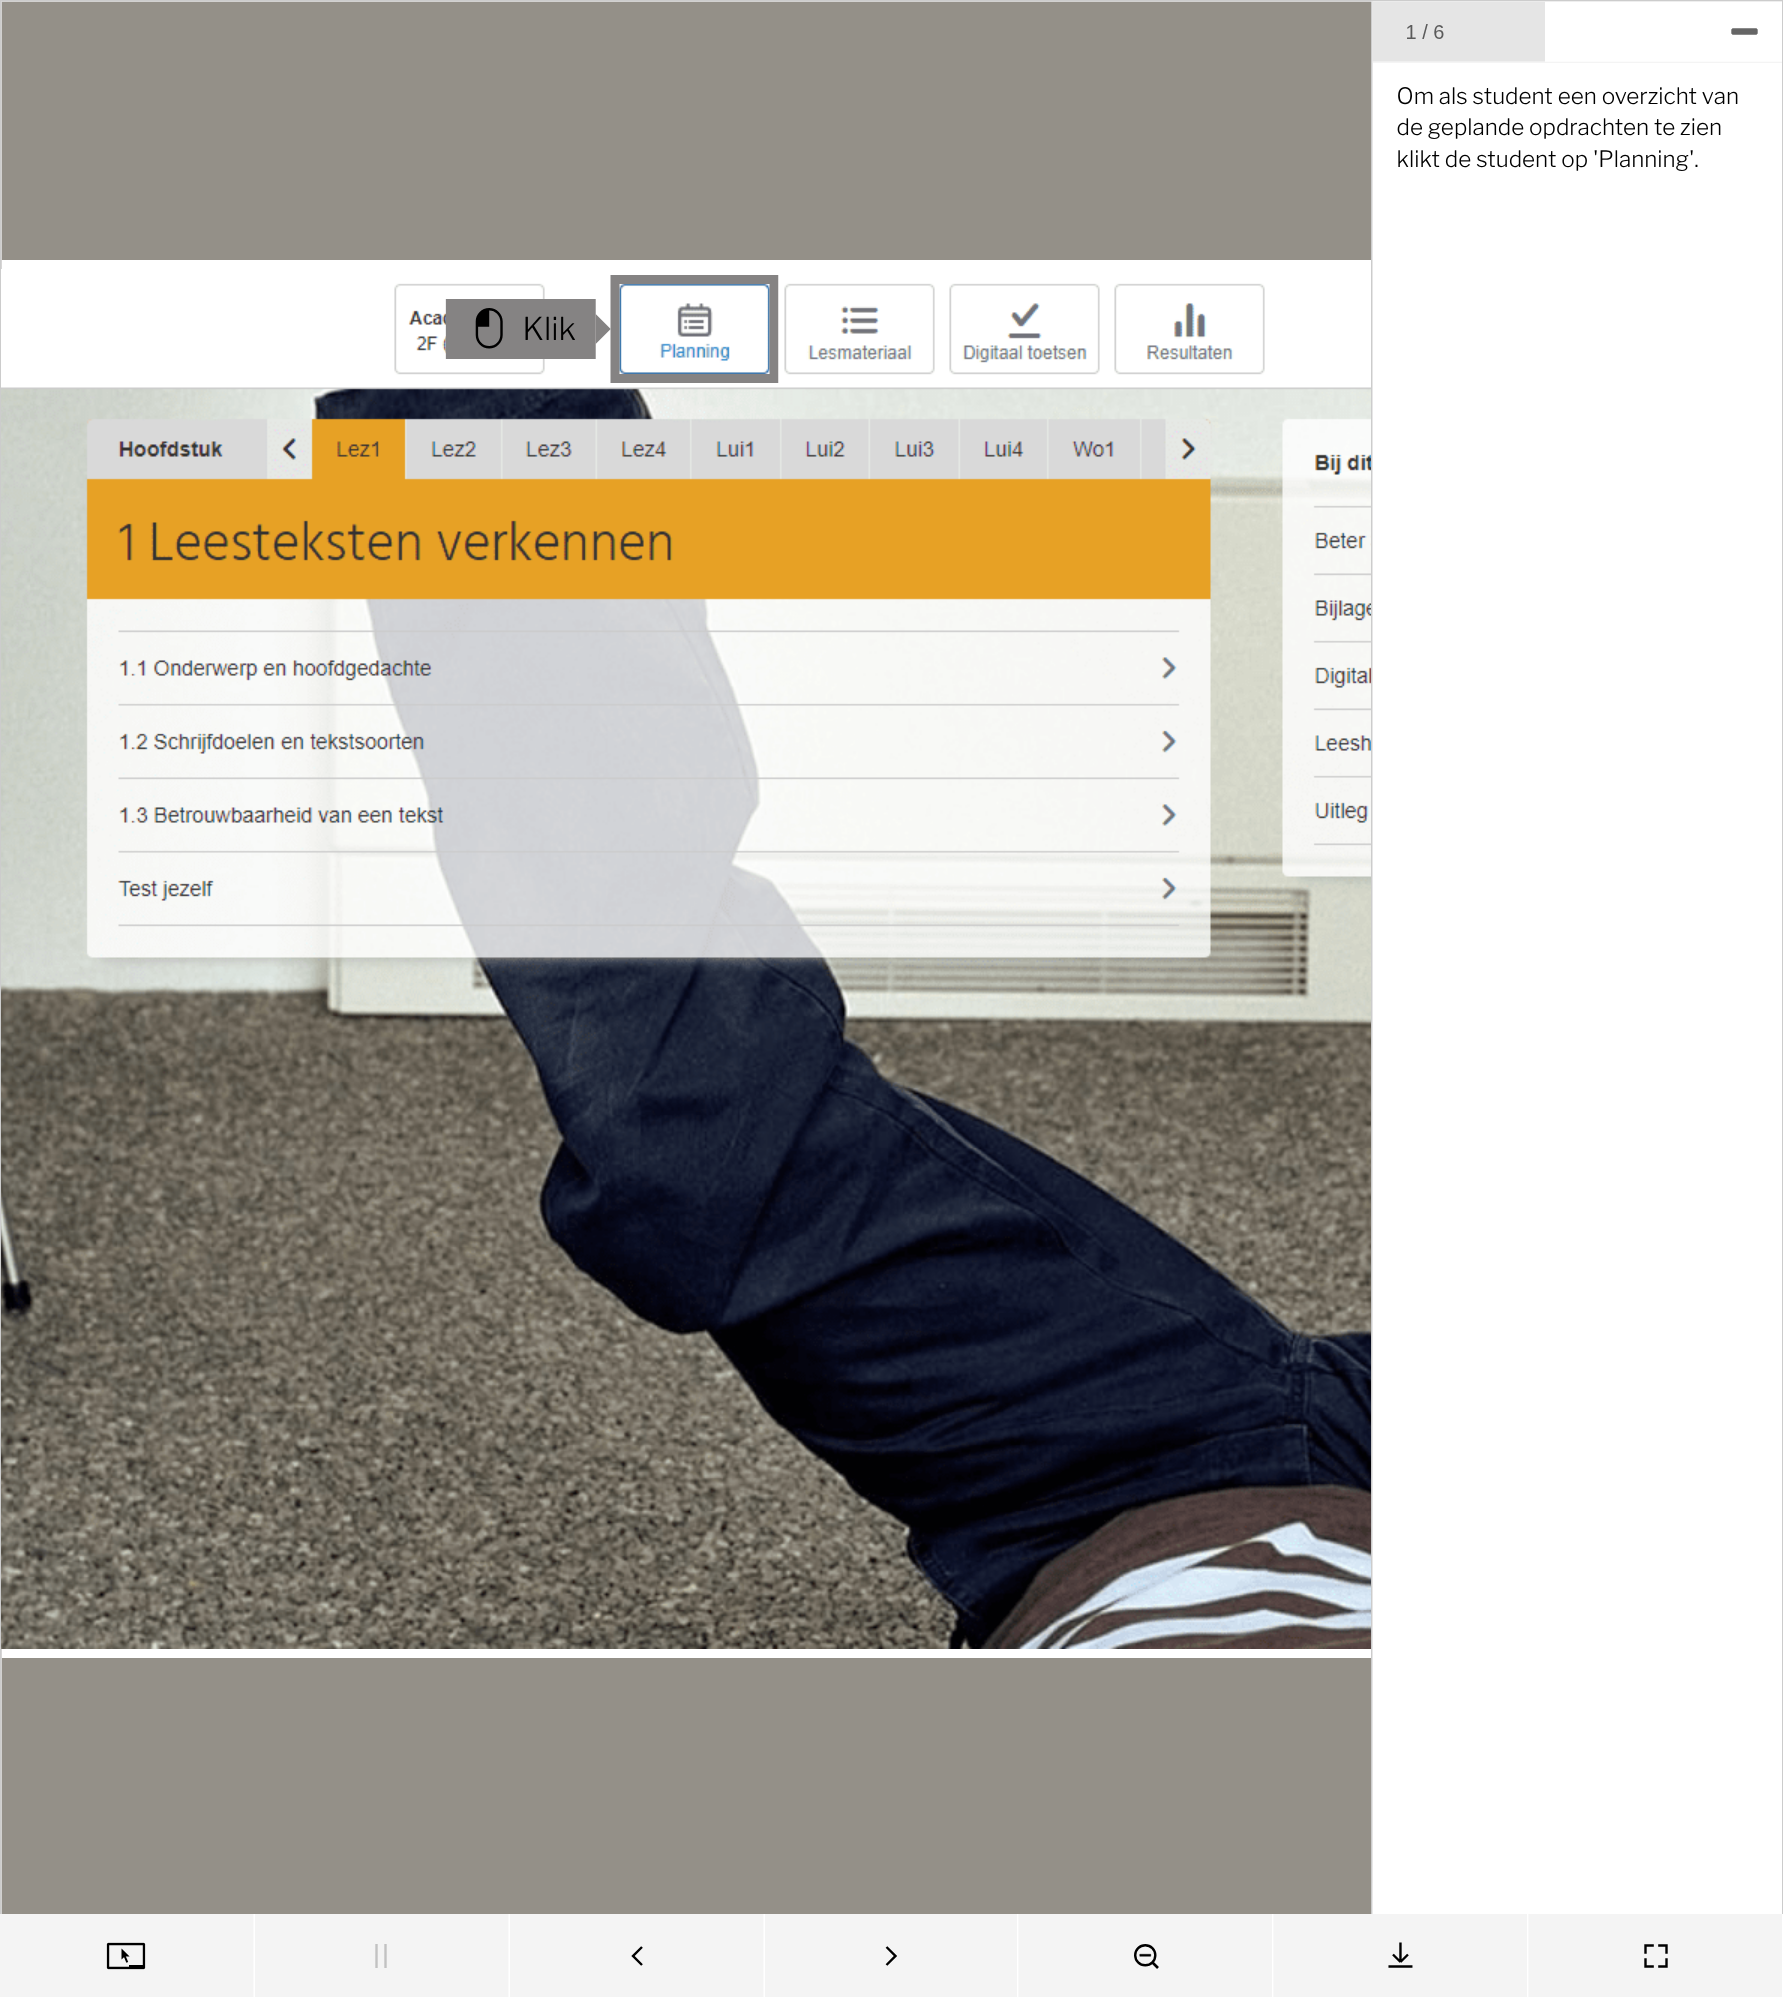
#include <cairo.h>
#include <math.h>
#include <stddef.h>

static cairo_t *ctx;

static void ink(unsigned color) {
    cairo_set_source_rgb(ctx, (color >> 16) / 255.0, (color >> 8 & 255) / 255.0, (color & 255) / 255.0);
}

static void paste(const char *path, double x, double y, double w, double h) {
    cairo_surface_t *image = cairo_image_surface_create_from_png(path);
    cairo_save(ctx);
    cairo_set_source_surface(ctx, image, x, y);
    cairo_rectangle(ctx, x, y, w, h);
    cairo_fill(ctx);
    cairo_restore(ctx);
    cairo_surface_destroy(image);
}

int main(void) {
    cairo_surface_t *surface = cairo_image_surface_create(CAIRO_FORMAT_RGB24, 1783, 1997);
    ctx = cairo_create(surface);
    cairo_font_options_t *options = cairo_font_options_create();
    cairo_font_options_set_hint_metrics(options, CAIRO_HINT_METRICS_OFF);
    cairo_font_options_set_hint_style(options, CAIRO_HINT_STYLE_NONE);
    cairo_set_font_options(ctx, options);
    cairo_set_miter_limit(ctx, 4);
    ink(0xffffff);
    cairo_paint(ctx);
    paste("pic1.png", 0, 0, 1783, 1997);
    cairo_surface_write_to_png(surface, "screenshot.png");
    cairo_font_options_destroy(options);
    cairo_destroy(ctx);
    cairo_surface_destroy(surface);
    return 0;
}
